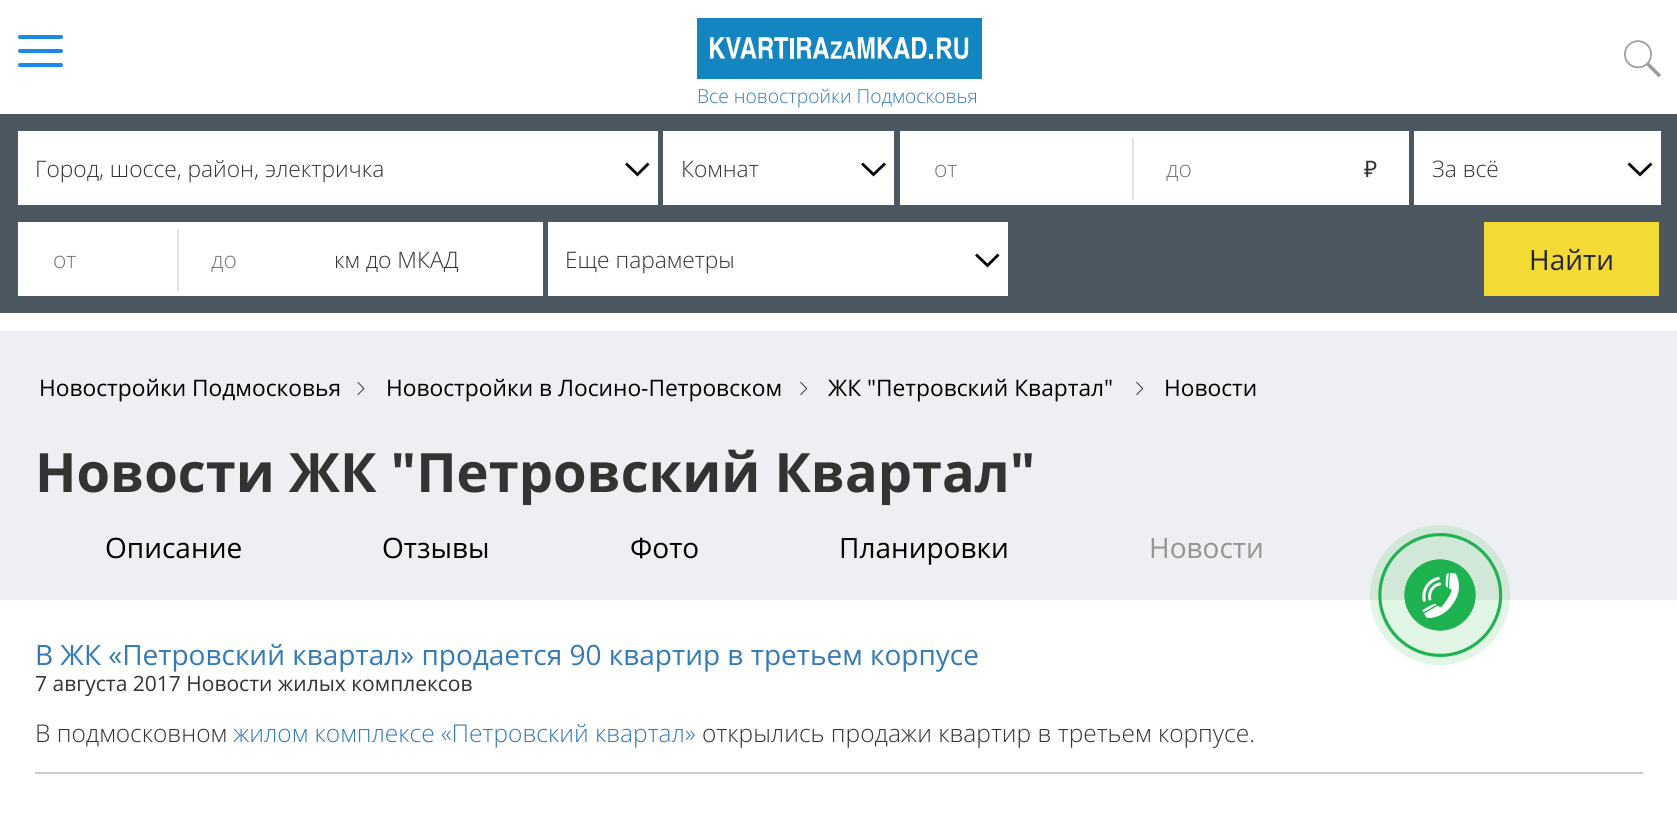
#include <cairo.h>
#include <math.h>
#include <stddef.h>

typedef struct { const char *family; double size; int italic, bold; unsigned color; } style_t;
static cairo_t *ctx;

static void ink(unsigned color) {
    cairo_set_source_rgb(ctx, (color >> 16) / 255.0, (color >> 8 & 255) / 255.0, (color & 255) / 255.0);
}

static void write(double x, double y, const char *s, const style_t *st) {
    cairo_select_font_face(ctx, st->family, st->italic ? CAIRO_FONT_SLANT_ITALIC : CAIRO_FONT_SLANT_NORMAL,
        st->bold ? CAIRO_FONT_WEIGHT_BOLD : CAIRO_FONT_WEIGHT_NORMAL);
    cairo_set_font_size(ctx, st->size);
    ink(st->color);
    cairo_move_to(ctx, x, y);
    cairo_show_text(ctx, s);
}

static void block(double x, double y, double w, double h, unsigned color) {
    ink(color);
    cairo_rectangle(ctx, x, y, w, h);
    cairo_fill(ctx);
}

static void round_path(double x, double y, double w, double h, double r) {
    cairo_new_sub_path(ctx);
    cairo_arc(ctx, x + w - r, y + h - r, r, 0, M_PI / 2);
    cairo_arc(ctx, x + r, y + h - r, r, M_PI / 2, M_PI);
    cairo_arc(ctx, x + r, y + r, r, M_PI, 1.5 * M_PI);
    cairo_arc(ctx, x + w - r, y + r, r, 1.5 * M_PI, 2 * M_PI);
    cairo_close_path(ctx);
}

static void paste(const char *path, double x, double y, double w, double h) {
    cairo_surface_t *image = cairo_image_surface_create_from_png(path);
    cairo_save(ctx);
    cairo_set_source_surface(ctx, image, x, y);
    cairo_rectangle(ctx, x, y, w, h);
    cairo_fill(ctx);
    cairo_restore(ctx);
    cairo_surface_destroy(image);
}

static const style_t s1 = {"Open Sans Light", 19.25, 0, 0, 0x337ab7};
static const style_t s2 = {"Open Sans Light", 22.75, 0, 0, 0x333333};
static const style_t s3 = {"Open Sans Light", 22.75, 0, 0, 0x757575};
static const style_t s4 = {"Noto Sans", 22.75, 0, 0, 0x333333};
static const style_t s5 = {"Open Sans", 28, 0, 0, 0x252430};
static const style_t s6 = {"Open Sans", 22.75, 0, 0, 0x000000};
static const style_t s7 = {"Open Sans", 54.25, 0, 1, 0x333333};
static const style_t s8 = {"Open Sans", 28, 0, 0, 0x000000};
static const style_t s9 = {"Open Sans", 28, 0, 0, 0x949494};
static const style_t s10 = {"Open Sans", 28, 0, 0, 0x337ab7};
static const style_t s11 = {"Open Sans", 21, 0, 0, 0x333333};
static const style_t s12 = {"Open Sans Light", 24.5, 0, 0, 0x333333};
static const style_t s13 = {"Open Sans Light", 24.5, 0, 0, 0x337ab7};

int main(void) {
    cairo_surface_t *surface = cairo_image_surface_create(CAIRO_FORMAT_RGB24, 1677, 840);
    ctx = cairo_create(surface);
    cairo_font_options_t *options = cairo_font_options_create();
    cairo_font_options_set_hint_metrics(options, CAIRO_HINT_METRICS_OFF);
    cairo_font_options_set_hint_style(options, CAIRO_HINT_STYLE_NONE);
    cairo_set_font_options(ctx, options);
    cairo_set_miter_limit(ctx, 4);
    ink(0xffffff);
    cairo_paint(ctx);
    ink(0x1b89e7);
    round_path(18, 35, 45, 4, 2);
    cairo_fill(ctx);
    round_path(18, 49, 45, 4, 2);
    cairo_fill(ctx);
    round_path(18, 63, 45, 4, 2);
    cairo_fill(ctx);
    paste("pic1.png", 1624, 40, 37, 37);
    paste("pic2.png", 697, 18, 285, 61);
    write(697, 103, "Все новостройки Подмосковья", &s1);
    block(0, 114, 1677, 199, 0x4b5761);
    block(18, 131, 640, 74, 0xffffff);
    write(35, 177, "Город, шоссе, район, электричка", &s2);
    cairo_new_path(ctx);
    cairo_move_to(ctx, 636.5, 175.5);
    cairo_line_to(ctx, 648.5, 163.5);
    cairo_move_to(ctx, 638.5, 175.5);
    cairo_line_to(ctx, 626, 163.5);
    ink(0x000000);
    cairo_set_line_width(ctx, 2.8);
    cairo_stroke(ctx);
    block(663, 131, 231, 74, 0xffffff);
    write(681, 177, "Комнат", &s2);
    cairo_new_path(ctx);
    cairo_move_to(ctx, 872.5, 175.5);
    cairo_line_to(ctx, 885, 163.5);
    cairo_move_to(ctx, 874.5, 175.5);
    cairo_line_to(ctx, 862, 163.5);
    ink(0x000000);
    cairo_stroke(ctx);
    block(900, 131, 509, 74, 0xffffff);
    block(1132, 138, 2, 62, 0xe4e4e4);
    write(934, 177, "от", &s3);
    write(1166, 177, "до", &s3);
    write(1364, 177, "₽", &s4);
    block(1414, 131, 247, 74, 0xffffff);
    write(1432, 177, "За всё", &s2);
    cairo_new_path(ctx);
    cairo_move_to(ctx, 1639, 175.5);
    cairo_line_to(ctx, 1651.5, 163.5);
    cairo_move_to(ctx, 1641, 175.5);
    cairo_line_to(ctx, 1628.5, 163.5);
    ink(0x000000);
    cairo_stroke(ctx);
    block(18, 222, 525, 74, 0xffffff);
    block(177, 229, 2, 62, 0xe4e4e4);
    write(53, 268, "от", &s3);
    write(211, 268, "до", &s3);
    write(334, 268, "км до МКАД", &s2);
    block(548, 222, 460, 74, 0xffffff);
    write(565, 268, "Еще параметры", &s2);
    cairo_new_path(ctx);
    cairo_move_to(ctx, 986.5, 266.5);
    cairo_line_to(ctx, 998.5, 254.5);
    cairo_move_to(ctx, 988.5, 266.5);
    cairo_line_to(ctx, 976, 254.5);
    ink(0x000000);
    cairo_stroke(ctx);
    block(1484, 222, 175, 74, 0xf3da34);
    write(1529, 270, "Найти", &s5);
    block(0, 331, 1677, 269, 0xedeff2);
    write(39, 396, "Новостройки Подмосковья", &s6);
    paste("pic3.png", 357, 382, 8, 13);
    write(386, 396, "Новостройки в Лосино-Петровском", &s6);
    paste("pic4.png", 800, 382, 7, 13);
    write(828, 396, "ЖК \"Петровский Квартал\"", &s6);
    paste("pic4.png", 1136, 382, 7, 13);
    write(1164, 396, "Новости", &s6);
    write(35, 492, "Новости ЖК \"Петровский Квартал\"", &s7);
    write(105, 558, "Описание", &s8);
    write(382, 558, "Отзывы", &s8);
    write(630, 558, "Фото", &s8);
    write(839, 558, "Планировки", &s8);
    write(1149, 558, "Новости", &s9);
    block(35, 772, 1608, 2, 0xcccccc);
    write(35, 665, "В ЖК «Петровский квартал» продается 90 квартир в третьем корпусе", &s10);
    write(35, 691, "7 августа 2017 Новости жилых комплексов", &s11);
    write(35, 742, "В подмосковном", &s12);
    write(233, 742, "жилом комплексе «Петровский квартал»", &s13);
    write(702, 742, "открылись продажи квартир в третьем корпусе.", &s12);
    cairo_set_source_rgba(ctx, 0.016, 0.702, 0.098, 0.12);
    cairo_new_path(ctx);
    cairo_arc(ctx, 1440, 595, 70, 0, 2 * M_PI);
    cairo_fill(ctx);
    paste("pic5.png", 1378, 533, 125, 124);
    cairo_surface_write_to_png(surface, "screenshot.png");
    cairo_font_options_destroy(options);
    cairo_destroy(ctx);
    cairo_surface_destroy(surface);
    return 0;
}
